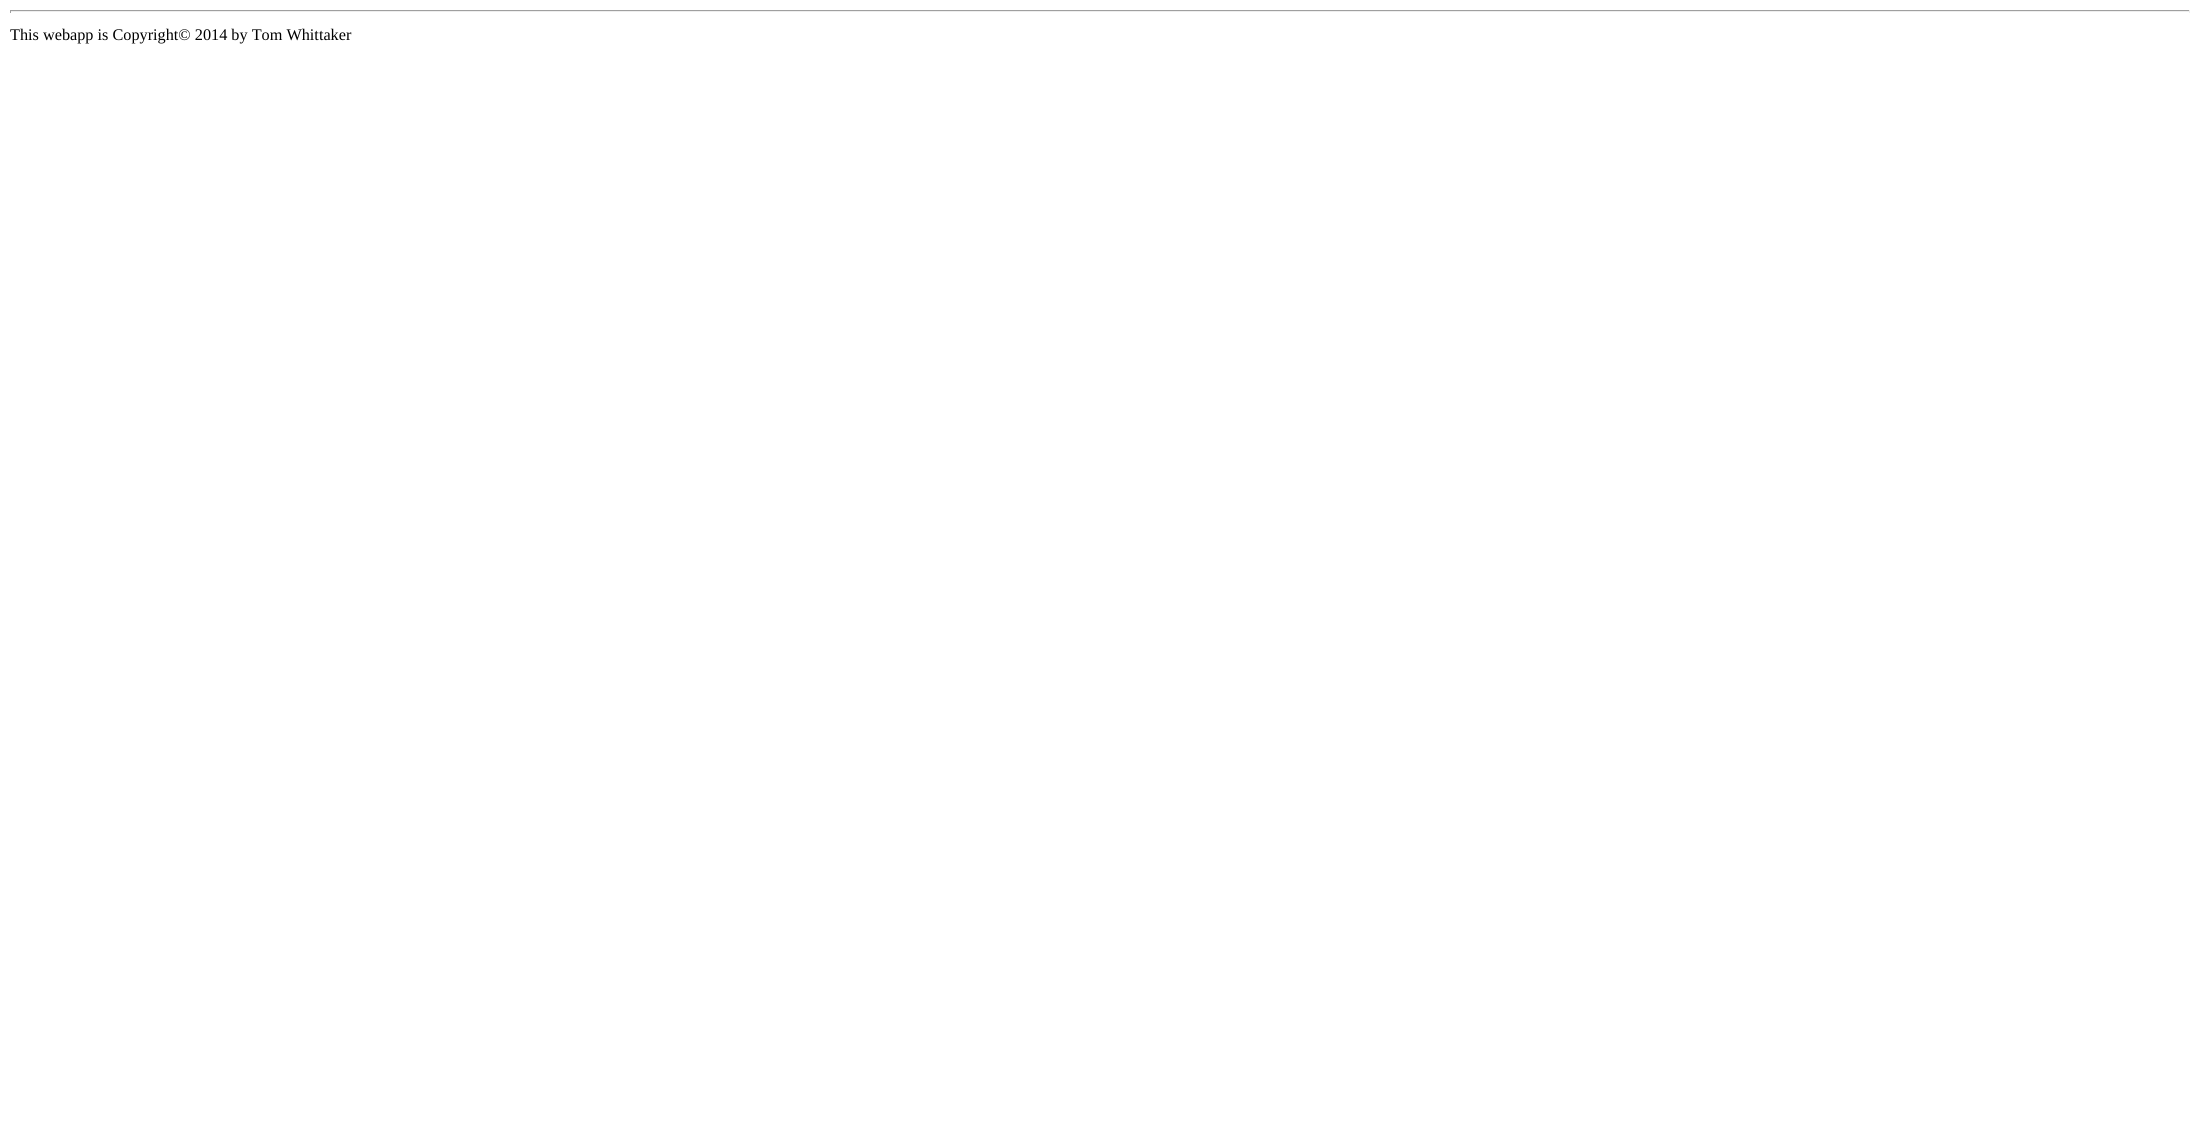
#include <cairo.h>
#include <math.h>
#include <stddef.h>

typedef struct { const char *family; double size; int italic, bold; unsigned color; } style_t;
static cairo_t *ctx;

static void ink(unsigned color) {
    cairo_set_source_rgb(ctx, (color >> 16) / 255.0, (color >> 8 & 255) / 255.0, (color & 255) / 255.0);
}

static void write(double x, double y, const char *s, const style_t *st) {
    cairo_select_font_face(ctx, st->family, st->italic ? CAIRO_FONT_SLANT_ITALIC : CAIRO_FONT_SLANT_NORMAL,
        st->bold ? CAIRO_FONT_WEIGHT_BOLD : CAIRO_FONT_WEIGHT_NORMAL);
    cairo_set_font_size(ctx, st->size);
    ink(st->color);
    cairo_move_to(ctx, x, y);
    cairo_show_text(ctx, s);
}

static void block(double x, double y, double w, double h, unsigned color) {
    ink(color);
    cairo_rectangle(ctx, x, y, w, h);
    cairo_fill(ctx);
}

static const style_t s1 = {"Liberation Serif", 16.25, 0, 0, 0x000000};

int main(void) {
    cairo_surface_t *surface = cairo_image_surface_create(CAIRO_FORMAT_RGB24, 2199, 1139);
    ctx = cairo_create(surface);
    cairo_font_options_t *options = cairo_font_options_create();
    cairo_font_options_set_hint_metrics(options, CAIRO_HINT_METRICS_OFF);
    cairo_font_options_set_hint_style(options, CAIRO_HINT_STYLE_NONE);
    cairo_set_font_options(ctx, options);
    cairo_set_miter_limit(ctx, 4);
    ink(0xffffff);
    cairo_paint(ctx);
    block(10, 10, 2180, 1, 0x9f9f9f);
    block(2189, 10, 1, 3, 0xeeeeee);
    block(10, 11, 2180, 1, 0xeeeeee);
    block(10, 10, 1, 3, 0x9f9f9f);
    write(10, 40, "This webapp is Copyright© 2014 by Tom Whittaker", &s1);
    cairo_surface_write_to_png(surface, "screenshot.png");
    cairo_font_options_destroy(options);
    cairo_destroy(ctx);
    cairo_surface_destroy(surface);
    return 0;
}
